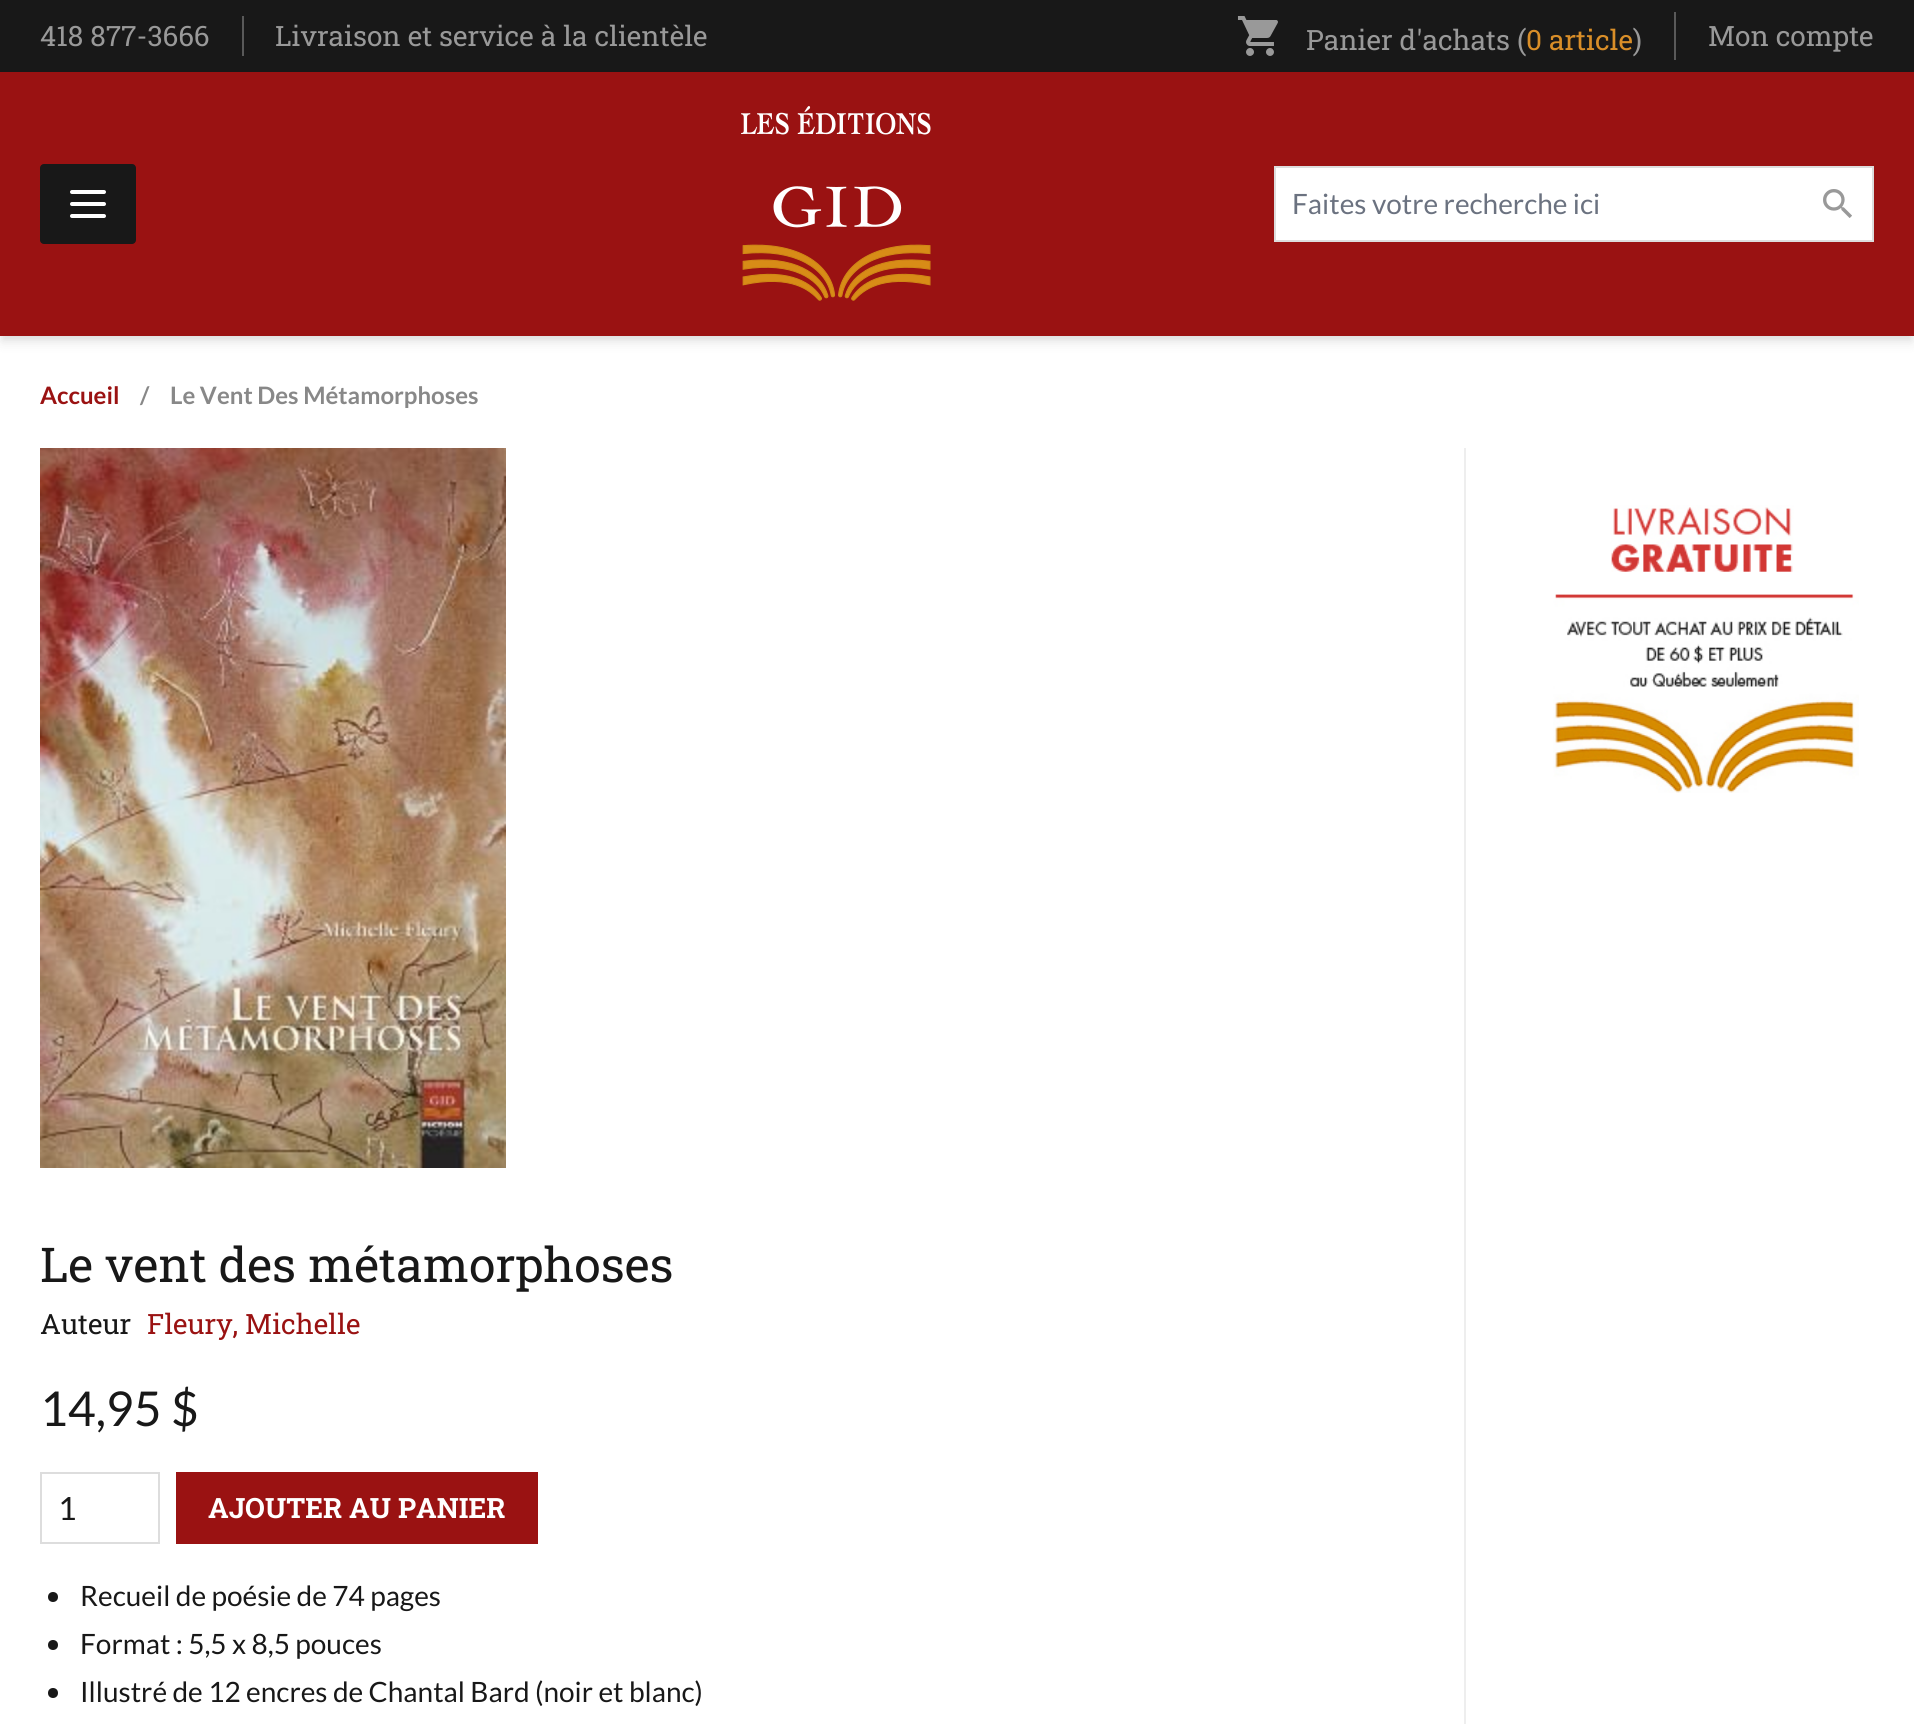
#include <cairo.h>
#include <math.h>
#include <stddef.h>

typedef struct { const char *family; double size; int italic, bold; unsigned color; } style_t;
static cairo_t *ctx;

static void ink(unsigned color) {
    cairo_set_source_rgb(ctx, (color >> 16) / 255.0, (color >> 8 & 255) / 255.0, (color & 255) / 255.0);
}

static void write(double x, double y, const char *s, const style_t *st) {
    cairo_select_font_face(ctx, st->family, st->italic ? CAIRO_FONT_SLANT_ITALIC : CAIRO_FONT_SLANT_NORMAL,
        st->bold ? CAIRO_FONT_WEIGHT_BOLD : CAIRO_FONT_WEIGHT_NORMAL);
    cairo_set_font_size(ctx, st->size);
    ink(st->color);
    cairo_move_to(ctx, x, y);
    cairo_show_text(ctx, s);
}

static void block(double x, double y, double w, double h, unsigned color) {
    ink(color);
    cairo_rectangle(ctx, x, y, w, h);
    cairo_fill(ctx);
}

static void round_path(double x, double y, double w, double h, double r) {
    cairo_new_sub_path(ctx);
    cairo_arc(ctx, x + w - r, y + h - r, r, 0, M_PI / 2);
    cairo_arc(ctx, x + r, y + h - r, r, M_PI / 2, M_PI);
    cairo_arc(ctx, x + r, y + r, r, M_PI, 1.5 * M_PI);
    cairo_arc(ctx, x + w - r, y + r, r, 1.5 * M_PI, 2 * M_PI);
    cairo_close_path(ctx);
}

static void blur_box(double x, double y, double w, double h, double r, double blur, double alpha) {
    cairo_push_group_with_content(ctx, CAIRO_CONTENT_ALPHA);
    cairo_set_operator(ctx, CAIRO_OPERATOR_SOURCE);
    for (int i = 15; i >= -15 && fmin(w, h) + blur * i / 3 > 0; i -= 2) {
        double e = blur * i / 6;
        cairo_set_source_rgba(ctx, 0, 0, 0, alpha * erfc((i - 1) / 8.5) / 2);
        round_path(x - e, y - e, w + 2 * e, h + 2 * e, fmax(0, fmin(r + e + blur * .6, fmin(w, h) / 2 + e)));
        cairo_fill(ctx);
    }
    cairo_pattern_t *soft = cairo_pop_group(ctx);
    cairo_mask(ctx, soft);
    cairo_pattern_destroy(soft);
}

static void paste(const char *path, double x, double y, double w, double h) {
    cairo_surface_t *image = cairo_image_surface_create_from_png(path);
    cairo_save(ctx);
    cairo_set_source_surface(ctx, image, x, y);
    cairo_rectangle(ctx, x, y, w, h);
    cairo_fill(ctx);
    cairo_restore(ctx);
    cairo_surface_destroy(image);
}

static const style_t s1 = {"Roboto Slab", 28, 0, 0, 0x999999};
static const style_t s2 = {"Roboto Slab", 28, 0, 0, 0xd98e28};
static const style_t s3 = {"Lato", 28, 0, 0, 0x6b7280};
static const style_t s4 = {"Lato", 24, 0, 1, 0x9a1212};
static const style_t s5 = {"Lato", 24, 0, 1, 0x888888};
static const style_t s6 = {"Roboto Slab", 48, 0, 0, 0x181818};
static const style_t s7 = {"Roboto Slab", 28, 0, 0, 0x181818};
static const style_t s8 = {"Roboto Slab", 28, 0, 0, 0x9a1212};
static const style_t s9 = {"Lato", 48, 0, 0, 0x181818};
static const style_t s10 = {"Lato", 32, 0, 0, 0x181818};
static const style_t s11 = {"Roboto Slab", 28, 0, 1, 0xffffff};
static const style_t s12 = {"Lato", 28, 0, 0, 0x181818};

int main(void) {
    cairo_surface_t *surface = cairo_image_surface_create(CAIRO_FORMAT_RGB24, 1914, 1724);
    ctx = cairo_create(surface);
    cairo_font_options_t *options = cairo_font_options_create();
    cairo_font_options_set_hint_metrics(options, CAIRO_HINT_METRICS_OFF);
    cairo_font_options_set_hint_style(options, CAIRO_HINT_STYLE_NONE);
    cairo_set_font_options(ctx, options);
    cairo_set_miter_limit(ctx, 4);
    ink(0xffffff);
    cairo_paint(ctx);
    ink(0x000000);
    blur_box(2, 6, 1910, 332, 0, 4, 0.06);
    blur_box(2, 10, 1910, 332, 0, 6, 0.1);
    block(0, 72, 1914, 264, 0x9a1212);
    block(0, 0, 1914, 72, 0x181818);
    write(40, 46, "418 877-3666", &s1);
    block(242, 16, 2, 40, 0x595959);
    write(275, 46, "Livraison et service à la clientèle", &s1);
    block(1674, 12, 2, 48, 0x595959);
    paste("pic1.png", 1237, 16, 41, 40);
    write(1306, 50, "Panier d'achats (", &s1);
    write(1526, 50, "0 article", &s2);
    write(1633, 50, ")", &s1);
    write(1708, 46, "Mon compte", &s1);
    ink(0x181818);
    round_path(40, 164, 96, 80, 4);
    cairo_fill(ctx);
    cairo_new_path(ctx);
    cairo_move_to(ctx, 72, 192);
    cairo_line_to(ctx, 104, 192);
    cairo_move_to(ctx, 72, 204);
    cairo_line_to(ctx, 104, 204);
    cairo_move_to(ctx, 72, 216);
    cairo_line_to(ctx, 104, 216);
    ink(0xffffff);
    cairo_set_line_width(ctx, 4);
    cairo_set_line_cap(ctx, CAIRO_LINE_CAP_ROUND);
    cairo_set_line_join(ctx, CAIRO_LINE_JOIN_ROUND);
    cairo_stroke(ctx);
    paste("pic2.png", 741, 106, 190, 195);
    cairo_rectangle(ctx, 1275, 167, 598, 74);
    cairo_fill_preserve(ctx);
    ink(0xdddddd);
    cairo_set_line_width(ctx, 2);
    cairo_set_line_cap(ctx, CAIRO_LINE_CAP_BUTT);
    cairo_set_line_join(ctx, CAIRO_LINE_JOIN_MITER);
    cairo_stroke(ctx);
    write(1292, 214, "Faites votre recherche ici", &s3);
    paste("pic3.png", 1823, 189, 29, 29);
    write(40, 404, "Accueil", &s4);
    write(140, 404, "/", &s5);
    write(170, 404, "Le Vent Des Métamorphoses", &s5);
    paste("pic4.png", 40, 448, 466, 720);
    write(40, 1282, "Le vent des métamorphoses", &s6);
    write(40, 1334, "Auteur", &s7);
    write(147, 1334, "Fleury, Michelle", &s8);
    write(40, 1426, "14,95 $", &s9);
    cairo_rectangle(ctx, 41, 1473, 118, 70);
    ink(0xdddddd);
    cairo_stroke(ctx);
    write(58, 1520, "1", &s10);
    block(176, 1472, 362, 72, 0x9a1212);
    write(208, 1518, "AJOUTER AU PANIER", &s11);
    ink(0x181818);
    cairo_new_path(ctx);
    cairo_arc(ctx, 53, 1597, 5, 0, 2 * M_PI);
    cairo_fill(ctx);
    write(80, 1606, "Recueil de poésie de 74 pages", &s12);
    cairo_new_path(ctx);
    cairo_arc(ctx, 53, 1645, 5, 0, 2 * M_PI);
    cairo_fill(ctx);
    write(80, 1654, "Format : 5,5 x 8,5 pouces", &s12);
    cairo_new_path(ctx);
    cairo_arc(ctx, 53, 1693, 5, 0, 2 * M_PI);
    cairo_fill(ctx);
    write(80, 1702, "Illustré de 12 encres de Chantal Bard (noir et blanc)", &s12);
    block(1464, 448, 2, 1276, 0xeeeeee);
    paste("pic5.png", 1553, 505, 306, 288);
    cairo_surface_write_to_png(surface, "screenshot.png");
    cairo_font_options_destroy(options);
    cairo_destroy(ctx);
    cairo_surface_destroy(surface);
    return 0;
}
